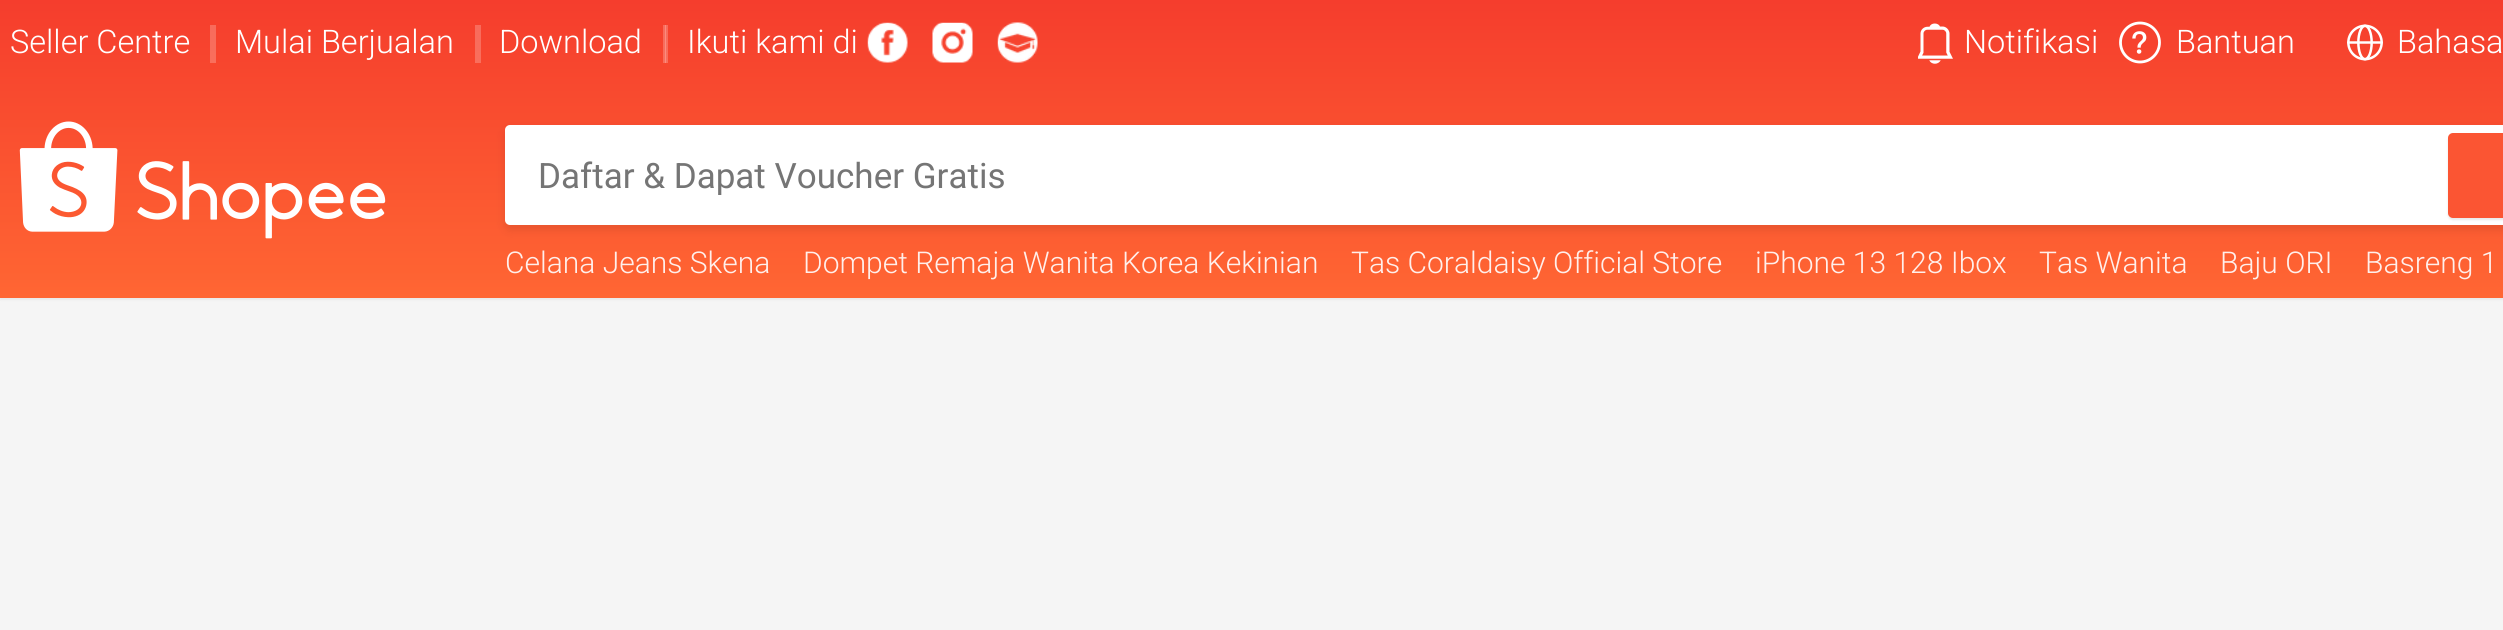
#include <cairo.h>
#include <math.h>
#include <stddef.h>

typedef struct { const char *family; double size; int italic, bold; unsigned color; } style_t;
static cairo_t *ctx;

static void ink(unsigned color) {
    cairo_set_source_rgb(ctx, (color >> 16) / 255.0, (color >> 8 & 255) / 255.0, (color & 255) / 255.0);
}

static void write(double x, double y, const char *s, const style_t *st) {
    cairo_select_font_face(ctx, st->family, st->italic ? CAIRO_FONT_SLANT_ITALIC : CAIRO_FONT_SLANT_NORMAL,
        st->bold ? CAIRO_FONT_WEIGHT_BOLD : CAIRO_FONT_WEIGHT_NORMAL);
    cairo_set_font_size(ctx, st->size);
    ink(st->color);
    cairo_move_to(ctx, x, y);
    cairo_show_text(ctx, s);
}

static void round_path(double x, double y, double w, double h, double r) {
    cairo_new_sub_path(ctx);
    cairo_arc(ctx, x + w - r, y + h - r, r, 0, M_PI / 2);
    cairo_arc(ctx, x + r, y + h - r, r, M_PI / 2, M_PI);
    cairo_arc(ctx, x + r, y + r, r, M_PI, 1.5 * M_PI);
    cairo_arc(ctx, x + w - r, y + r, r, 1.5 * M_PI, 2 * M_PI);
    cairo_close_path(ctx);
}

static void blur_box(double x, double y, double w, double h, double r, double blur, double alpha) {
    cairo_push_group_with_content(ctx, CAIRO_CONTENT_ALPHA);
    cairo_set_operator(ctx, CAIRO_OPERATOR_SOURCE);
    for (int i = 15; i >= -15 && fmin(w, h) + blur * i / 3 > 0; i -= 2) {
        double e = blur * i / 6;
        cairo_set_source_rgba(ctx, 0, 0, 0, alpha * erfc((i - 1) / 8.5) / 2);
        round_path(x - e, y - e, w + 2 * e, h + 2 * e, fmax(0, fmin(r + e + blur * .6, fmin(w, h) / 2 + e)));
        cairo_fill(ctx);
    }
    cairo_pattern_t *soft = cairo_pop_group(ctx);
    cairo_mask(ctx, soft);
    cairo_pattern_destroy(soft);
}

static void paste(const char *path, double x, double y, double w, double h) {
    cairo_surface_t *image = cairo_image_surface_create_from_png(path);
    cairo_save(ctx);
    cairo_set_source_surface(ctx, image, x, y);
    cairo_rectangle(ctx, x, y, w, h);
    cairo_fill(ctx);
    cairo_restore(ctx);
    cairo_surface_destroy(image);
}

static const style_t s1 = {"Roboto Light", 32.5, 0, 0, 0xffffff};
static const style_t s2 = {"Roboto", 35, 0, 0, 0x757575};
static const style_t s3 = {"Roboto Light", 30, 0, 0, 0xffefeb};

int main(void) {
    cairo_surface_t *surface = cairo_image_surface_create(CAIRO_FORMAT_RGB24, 2503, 630);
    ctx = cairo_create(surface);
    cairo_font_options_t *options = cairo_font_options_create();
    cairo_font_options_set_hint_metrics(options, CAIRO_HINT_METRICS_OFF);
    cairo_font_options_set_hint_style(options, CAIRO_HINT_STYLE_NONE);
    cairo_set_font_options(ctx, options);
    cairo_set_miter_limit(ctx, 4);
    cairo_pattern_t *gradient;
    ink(0xf5f5f5);
    cairo_paint(ctx);
    gradient = cairo_pattern_create_linear(1500, 0, 1500, 298);
    cairo_pattern_add_color_stop_rgba(gradient, 0, 0.961, 0.239, 0.176, 1);
    cairo_pattern_add_color_stop_rgba(gradient, 1, 1, 0.4, 0.2, 1);
    cairo_set_source(ctx, gradient);
    cairo_pattern_destroy(gradient);
    cairo_rectangle(ctx, 0, 0, 2503, 298);
    cairo_fill(ctx);
    gradient = cairo_pattern_create_linear(1500, 0, 1500, 298);
    cairo_pattern_add_color_stop_rgba(gradient, 0, 0.969, 0.408, 0.357, 1);
    cairo_pattern_add_color_stop_rgba(gradient, 1, 1, 0.533, 0.376, 1);
    cairo_set_source(ctx, gradient);
    cairo_pattern_destroy(gradient);
    cairo_rectangle(ctx, 663, 25, 2, 38);
    cairo_fill(ctx);
    cairo_rectangle(ctx, 666, 25, 2, 38);
    cairo_fill(ctx);
    gradient = cairo_pattern_create_linear(1500, 0, 1500, 298);
    cairo_pattern_add_color_stop_rgba(gradient, 0, 0.976, 0.537, 0.498, 1);
    cairo_pattern_add_color_stop_rgba(gradient, 1, 1, 0.635, 0.514, 1);
    cairo_set_source(ctx, gradient);
    cairo_pattern_destroy(gradient);
    cairo_rectangle(ctx, 665, 25, 1, 38);
    cairo_fill(ctx);
    gradient = cairo_pattern_create_linear(1500, 0, 1500, 298);
    cairo_pattern_add_color_stop_rgba(gradient, 0, 0.969, 0.408, 0.357, 1);
    cairo_pattern_add_color_stop_rgba(gradient, 1, 1, 0.533, 0.376, 1);
    cairo_set_source(ctx, gradient);
    cairo_pattern_destroy(gradient);
    cairo_rectangle(ctx, 475, 25, 3, 38);
    cairo_fill(ctx);
    cairo_rectangle(ctx, 478, 25, 3, 38);
    cairo_fill(ctx);
    cairo_rectangle(ctx, 210, 25, 3, 38);
    cairo_fill(ctx);
    cairo_rectangle(ctx, 213, 25, 3, 38);
    cairo_fill(ctx);
    write(10, 53, "Seller Centre", &s1);
    write(235, 53, "Mulai Berjualan", &s1);
    write(499, 53, "Download", &s1);
    write(687, 53, "Ikuti kami di", &s1);
    paste("pic1.png", 867, 22, 41, 41);
    paste("pic2.png", 932, 22, 41, 41);
    paste("pic3.png", 997, 22, 41, 41);
    paste("pic4.png", 1918, 23, 35, 41);
    write(1964, 53, "Notifikasi", &s1);
    paste("pic5.png", 2119, 21, 42, 43);
    write(2176, 53, "Bantuan", &s1);
    paste("pic6.png", 2347, 24, 36, 37);
    write(2397, 53, "Bahasa", &s1);
    cairo_save(ctx);
    cairo_set_fill_rule(ctx, CAIRO_FILL_RULE_EVEN_ODD);
    cairo_new_path(ctx);
    cairo_move_to(ctx, 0, 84);
    cairo_line_to(ctx, 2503, 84);
    cairo_line_to(ctx, 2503, 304);
    cairo_line_to(ctx, 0, 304);
    cairo_close_path(ctx);
    cairo_move_to(ctx, 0, 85);
    cairo_line_to(ctx, 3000, 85);
    cairo_line_to(ctx, 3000, 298);
    cairo_line_to(ctx, 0, 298);
    cairo_close_path(ctx);
    cairo_clip(ctx);
    ink(0x000000);
    blur_box(0, 88, 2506, 212, 0, 1, 0.05);
    cairo_restore(ctx);
    paste("pic7.png", 19, 121, 367, 118);
    ink(0x000000);
    blur_box(505, 130, 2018, 100, 5, 5, 0.09);
    ink(0xffffff);
    round_path(505, 125, 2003, 100, 5);
    cairo_fill(ctx);
    cairo_save(ctx);
    cairo_rectangle(ctx, 538, 155, 1885, 40);
    cairo_clip(ctx);
    write(538, 188, "Daftar & Dapat Voucher Gratis", &s2);
    cairo_restore(ctx);
    ink(0x000000);
    blur_box(2448, 135, 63, 85, 5, 1, 0.09);
    ink(0xfb5533);
    round_path(2448, 133, 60, 85, 5);
    cairo_fill(ctx);
    write(505, 273, "Celana Jeans Skena", &s3);
    write(803, 273, "Dompet Remaja Wanita Korea Kekinian", &s3);
    write(1351, 273, "Tas Coraldaisy Official Store", &s3);
    write(1755, 273, "iPhone 13 128 Ibox", &s3);
    write(2039, 273, "Tas Wanita", &s3);
    write(2220, 273, "Baju ORI", &s3);
    write(2365, 273, "Basreng 1", &s3);
    cairo_surface_write_to_png(surface, "screenshot.png");
    cairo_font_options_destroy(options);
    cairo_destroy(ctx);
    cairo_surface_destroy(surface);
    return 0;
}
